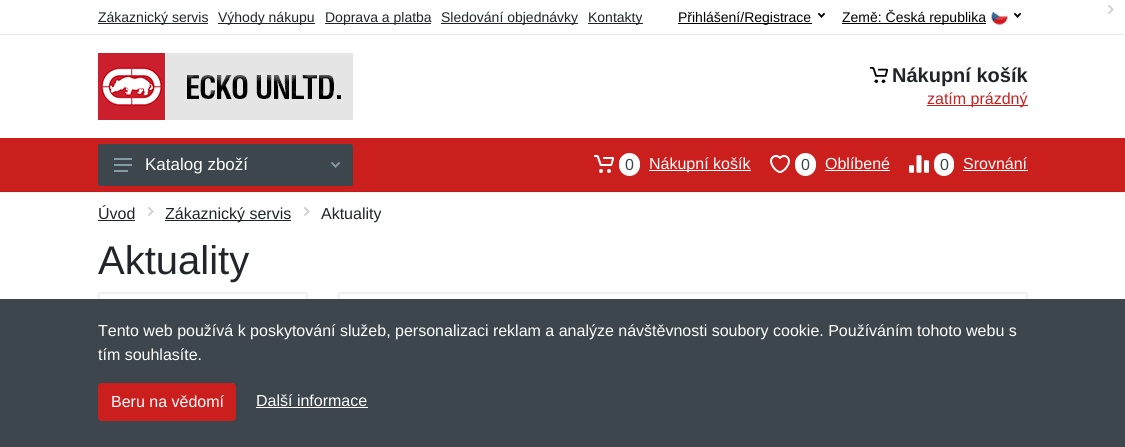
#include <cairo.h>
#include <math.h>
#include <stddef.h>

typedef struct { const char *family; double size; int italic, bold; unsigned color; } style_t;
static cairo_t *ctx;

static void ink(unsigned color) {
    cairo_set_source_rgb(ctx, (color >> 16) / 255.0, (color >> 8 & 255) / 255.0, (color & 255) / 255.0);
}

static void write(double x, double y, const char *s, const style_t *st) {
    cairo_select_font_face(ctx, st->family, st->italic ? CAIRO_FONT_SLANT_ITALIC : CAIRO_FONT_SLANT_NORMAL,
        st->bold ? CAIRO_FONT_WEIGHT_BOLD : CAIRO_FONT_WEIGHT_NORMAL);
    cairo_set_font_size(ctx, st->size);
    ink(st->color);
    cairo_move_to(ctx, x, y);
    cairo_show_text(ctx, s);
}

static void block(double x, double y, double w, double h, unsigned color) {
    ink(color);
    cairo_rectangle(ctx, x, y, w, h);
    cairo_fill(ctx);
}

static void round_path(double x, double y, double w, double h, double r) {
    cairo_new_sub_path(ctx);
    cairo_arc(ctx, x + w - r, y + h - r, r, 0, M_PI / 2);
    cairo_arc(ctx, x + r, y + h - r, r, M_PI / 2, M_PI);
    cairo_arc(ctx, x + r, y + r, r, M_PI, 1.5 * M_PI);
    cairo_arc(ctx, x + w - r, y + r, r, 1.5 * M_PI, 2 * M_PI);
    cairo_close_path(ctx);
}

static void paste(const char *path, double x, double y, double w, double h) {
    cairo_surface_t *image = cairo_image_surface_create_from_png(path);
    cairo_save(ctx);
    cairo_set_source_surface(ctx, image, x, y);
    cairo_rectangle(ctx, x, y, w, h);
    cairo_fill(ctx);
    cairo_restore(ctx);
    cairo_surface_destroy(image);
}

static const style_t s1 = {"Liberation Sans", 14, 0, 0, 0x212529};
static const style_t s2 = {"Liberation Sans", 14, 0, 0, 0x000000};
static const style_t s3 = {"Liberation Sans", 20, 0, 1, 0x212529};
static const style_t s4 = {"Liberation Sans", 16, 0, 0, 0xcb1f1e};
static const style_t s5 = {"Liberation Sans", 17, 0, 0, 0xffffff};
static const style_t s6 = {"Liberation Sans", 16, 0, 0, 0x3d464d};
static const style_t s7 = {"Liberation Sans", 16, 0, 0, 0xffffff};
static const style_t s8 = {"Liberation Sans", 16, 0, 0, 0x212529};
static const style_t s9 = {"Liberation Sans", 40, 0, 0, 0x212529};

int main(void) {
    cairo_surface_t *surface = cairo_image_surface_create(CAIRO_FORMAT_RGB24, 1125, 447);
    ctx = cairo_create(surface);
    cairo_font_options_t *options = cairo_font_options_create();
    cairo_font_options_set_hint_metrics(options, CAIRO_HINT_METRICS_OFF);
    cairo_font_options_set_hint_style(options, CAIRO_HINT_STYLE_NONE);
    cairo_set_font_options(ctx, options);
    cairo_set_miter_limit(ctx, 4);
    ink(0xffffff);
    cairo_paint(ctx);
    paste("pic11.png", 1108, 5, 6, 9);
    cairo_rectangle(ctx, -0.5, -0.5, 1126, 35);
    ink(0xebebeb);
    cairo_set_line_width(ctx, 1);
    cairo_stroke(ctx);
    block(98, 23, 110, 1, 0x212529);
    write(98, 22, "Zákaznický servis", &s1);
    block(218, 23, 97, 1, 0x212529);
    write(218, 22, "Výhody nákupu", &s1);
    block(325, 23, 106, 1, 0x212529);
    write(325, 22, "Doprava a platba", &s1);
    block(441, 23, 137, 1, 0x212529);
    write(441, 22, "Sledování objednávky", &s1);
    block(588, 23, 55, 1, 0x212529);
    write(588, 22, "Kontakty", &s1);
    block(678, 23, 134, 1, 0x000000);
    write(678, 22, "Přihlášení/Registrace", &s2);
    paste("pic1.png", 818, 13, 7, 5);
    block(842, 23, 144, 1, 0x000000);
    write(842, 22, "Země: Česká republika", &s2);
    paste("pic2.png", 991, 8, 17, 17);
    paste("pic3.png", 1014, 13, 7, 5);
    paste("pic4.png", 98, 53, 255, 67);
    paste("pic5.png", 870, 67, 18, 16);
    write(892, 82, "Nákupní košík", &s3);
    block(927, 105, 101, 1, 0xcb1f1e);
    write(927, 104, "zatím prázdný", &s4);
    block(0, 192, 1125, 1, 0xf5f5f5);
    block(0, 138, 1125, 53, 0xcb1f1e);
    block(0, 191, 1125, 1, 0xc31e1d);
    ink(0x3d464d);
    round_path(98, 144, 255, 42, 2);
    cairo_fill(ctx);
    paste("pic6.png", 114, 158, 18, 14);
    write(145, 170, "Katalog zboží", &s5);
    paste("pic7.png", 331, 162, 9, 6);
    paste("pic8.png", 594, 155, 20, 18);
    round_path(619, 153, 21, 23, 10.5);
    cairo_fill(ctx);
    write(625, 170, "0", &s6);
    block(649, 170, 102, 1, 0xffffff);
    write(649, 169, "Nákupní košík", &s7);
    paste("pic9.png", 770, 155, 20, 18);
    round_path(795, 153, 21, 23, 10.5);
    cairo_fill(ctx);
    write(801, 170, "0", &s6);
    write(825, 169, "Oblíbené", &s7);
    block(825, 170, 65, 1, 0xffffff);
    paste("pic10.png", 909, 155, 20, 18);
    round_path(934, 153, 20, 23, 10);
    cairo_fill(ctx);
    write(940, 170, "0", &s6);
    write(963, 169, "Srovnání", &s7);
    block(963, 170, 65, 1, 0xffffff);
    write(98, 219, "Úvod", &s8);
    block(98, 220, 37, 1, 0x212529);
    paste("pic11.png", 148, 207, 6, 9);
    block(165, 220, 126, 1, 0x212529);
    write(165, 219, "Zákaznický servis", &s8);
    paste("pic11.png", 304, 207, 6, 9);
    write(321, 219, "Aktuality", &s8);
    write(98, 274, "Aktuality", &s9);
    round_path(99, 293, 208, 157, 1);
    ink(0xf0f0f0);
    cairo_set_line_width(ctx, 2);
    cairo_stroke(ctx);
    round_path(339, 293, 688, 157, 1);
    cairo_stroke(ctx);
    block(0, 299, 1125, 148, 0x3d464d);
    write(98, 336, "Tento web používá k poskytování služeb, personalizaci reklam a analýze návštěvnosti soubory cookie. Používáním tohoto webu s", &s7);
    write(98, 360, "tím souhlasíte.", &s7);
    ink(0xcb1f1e);
    round_path(98.5, 383.5, 137, 37, 3.5);
    cairo_fill_preserve(ctx);
    cairo_set_line_width(ctx, 1);
    cairo_stroke(ctx);
    write(111, 407, "Beru na vědomí", &s7);
    write(256, 406, "Další informace", &s7);
    block(256, 407, 112, 1, 0xffffff);
    cairo_surface_write_to_png(surface, "screenshot.png");
    cairo_font_options_destroy(options);
    cairo_destroy(ctx);
    cairo_surface_destroy(surface);
    return 0;
}
